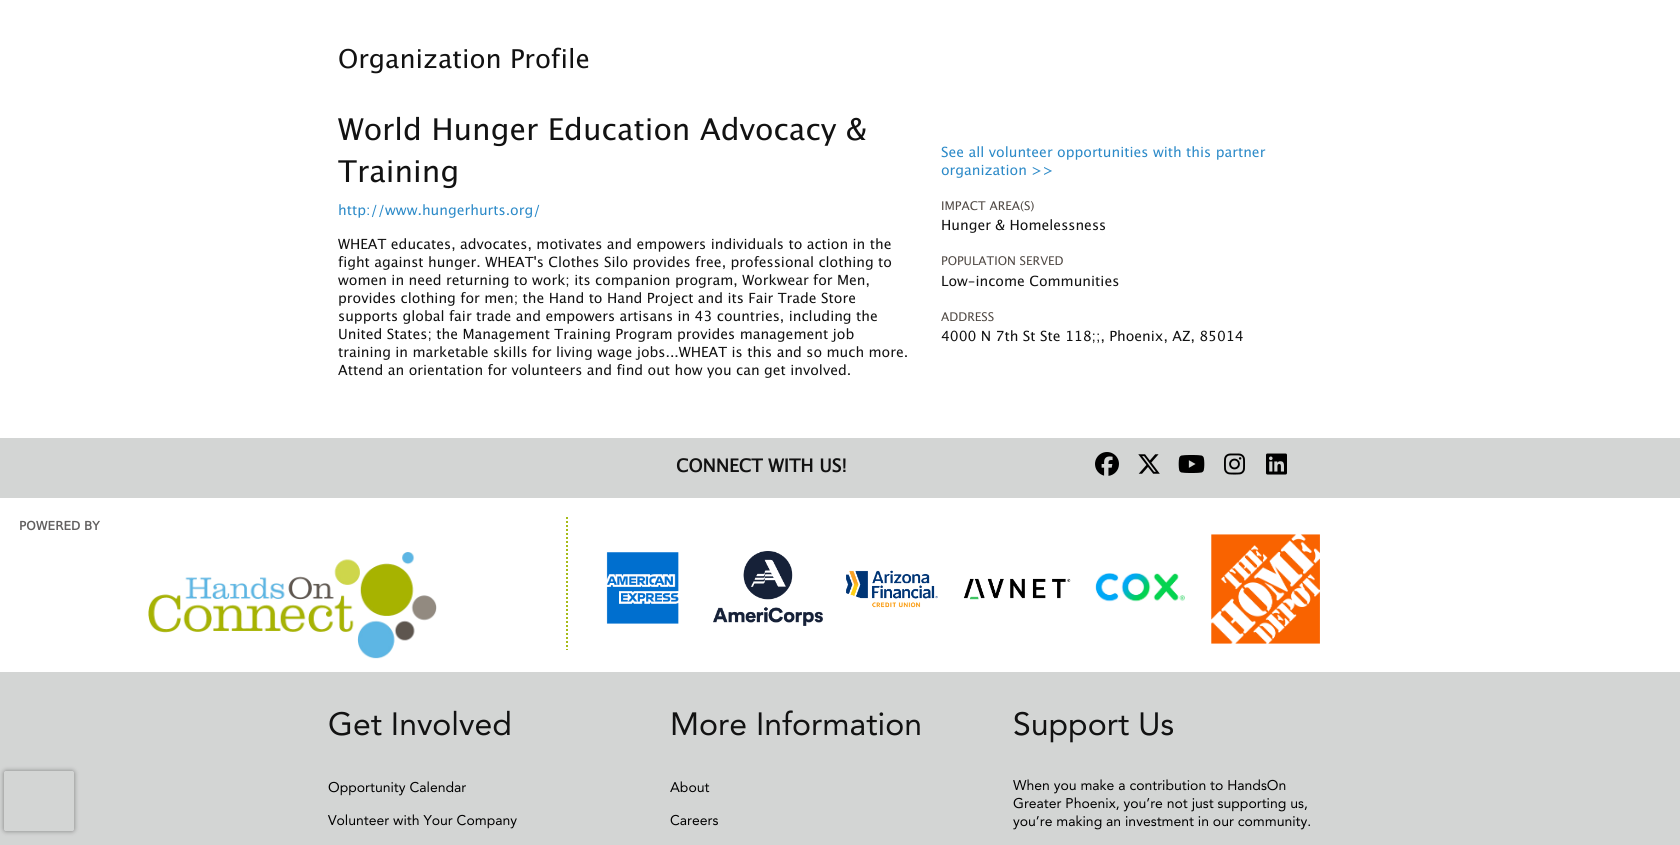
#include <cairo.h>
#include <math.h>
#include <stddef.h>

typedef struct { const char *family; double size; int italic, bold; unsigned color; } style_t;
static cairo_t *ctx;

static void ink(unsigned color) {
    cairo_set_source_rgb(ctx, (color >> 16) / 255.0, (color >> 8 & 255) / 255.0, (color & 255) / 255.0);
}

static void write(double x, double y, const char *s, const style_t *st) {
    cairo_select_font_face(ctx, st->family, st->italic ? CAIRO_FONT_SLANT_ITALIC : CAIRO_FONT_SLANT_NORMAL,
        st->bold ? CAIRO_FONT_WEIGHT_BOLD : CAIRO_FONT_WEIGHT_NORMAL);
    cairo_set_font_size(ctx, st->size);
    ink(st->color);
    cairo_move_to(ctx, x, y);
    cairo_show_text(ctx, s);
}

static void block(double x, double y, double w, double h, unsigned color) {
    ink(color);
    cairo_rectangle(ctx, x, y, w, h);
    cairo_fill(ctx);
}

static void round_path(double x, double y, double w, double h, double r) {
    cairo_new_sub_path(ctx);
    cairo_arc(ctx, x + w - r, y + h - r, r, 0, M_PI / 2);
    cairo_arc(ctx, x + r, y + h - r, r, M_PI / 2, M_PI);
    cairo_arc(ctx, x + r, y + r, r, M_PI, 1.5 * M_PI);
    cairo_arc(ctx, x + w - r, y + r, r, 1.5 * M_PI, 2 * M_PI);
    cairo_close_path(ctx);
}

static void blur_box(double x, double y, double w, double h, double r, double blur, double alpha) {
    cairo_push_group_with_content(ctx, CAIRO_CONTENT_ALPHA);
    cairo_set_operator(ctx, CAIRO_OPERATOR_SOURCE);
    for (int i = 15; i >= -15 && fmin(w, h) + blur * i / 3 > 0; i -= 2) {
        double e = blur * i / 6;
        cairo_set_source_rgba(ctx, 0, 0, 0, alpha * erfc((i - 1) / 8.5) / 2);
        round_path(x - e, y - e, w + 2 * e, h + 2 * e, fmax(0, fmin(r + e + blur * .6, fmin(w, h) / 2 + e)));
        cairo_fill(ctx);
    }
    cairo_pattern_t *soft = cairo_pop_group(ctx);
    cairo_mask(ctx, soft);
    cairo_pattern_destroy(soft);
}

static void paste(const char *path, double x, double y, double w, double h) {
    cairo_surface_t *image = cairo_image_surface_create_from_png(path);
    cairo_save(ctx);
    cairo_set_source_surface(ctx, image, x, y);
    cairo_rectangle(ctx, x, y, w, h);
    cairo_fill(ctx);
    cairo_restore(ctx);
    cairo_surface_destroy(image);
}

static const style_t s1 = {"Lucida Grande", 26, 0, 0, 0x121212};
static const style_t s2 = {"Lucida Grande", 30, 0, 0, 0x121212};
static const style_t s3 = {"Lucida Grande", 14, 0, 0, 0x2c8ac8};
static const style_t s4 = {"Lucida Grande", 14, 0, 0, 0x121212};
static const style_t s5 = {"Lucida Grande", 12, 0, 0, 0x504944};
static const style_t s6 = {"Lucida Grande", 18, 0, 1, 0x121212};
static const style_t s7 = {"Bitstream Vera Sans", 12, 0, 1, 0x615f5f};
static const style_t s8 = {"Avenir", 32, 0, 0, 0x121212};
static const style_t s9 = {"Avenir", 14, 0, 0, 0x000000};

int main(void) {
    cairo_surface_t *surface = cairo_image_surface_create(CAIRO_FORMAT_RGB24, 1680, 845);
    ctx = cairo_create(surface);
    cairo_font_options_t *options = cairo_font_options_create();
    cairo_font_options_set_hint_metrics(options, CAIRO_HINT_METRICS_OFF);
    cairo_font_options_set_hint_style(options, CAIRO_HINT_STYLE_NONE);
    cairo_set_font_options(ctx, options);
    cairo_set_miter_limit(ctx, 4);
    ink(0xffffff);
    cairo_paint(ctx);
    write(338, 68, "Organization Profile", &s1);
    write(338, 140, "World Hunger Education Advocacy &", &s2);
    write(338, 182, "Training", &s2);
    write(338, 215, "http://www.hungerhurts.org/", &s3);
    write(338, 249, "WHEAT educates, advocates, motivates and empowers individuals to action in the", &s4);
    write(338, 267, "fight against hunger. WHEAT's Clothes Silo provides free, professional clothing to", &s4);
    write(338, 285, "women in need returning to work; its companion program, Workwear for Men,", &s4);
    write(338, 303, "provides clothing for men; the Hand to Hand Project and its Fair Trade Store", &s4);
    write(338, 321, "supports global fair trade and empowers artisans in 43 countries, including the", &s4);
    write(338, 339, "United States; the Management Training Program provides management job", &s4);
    write(338, 357, "training in marketable skills for living wage jobs...WHEAT is this and so much more.", &s4);
    write(338, 375, "Attend an orientation for volunteers and find out how you can get involved.", &s4);
    write(941, 157, "See all volunteer opportunities with this partner", &s3);
    write(941, 175, "organization >>", &s3);
    write(941, 210, "IMPACT AREA(S)", &s5);
    write(941, 230, "Hunger & Homelessness", &s4);
    write(941, 265, "POPULATION SERVED", &s5);
    write(941, 286, "Low-income Communities", &s4);
    write(941, 321, "ADDRESS", &s5);
    write(941, 341, "4000 N 7th St Ste 118;;, Phoenix, AZ, 85014", &s4);
    block(0, 438, 1680, 60, 0xd3d5d4);
    write(676, 472, "CONNECT WITH US!", &s6);
    paste("pic1.png", 1095, 452, 24, 24);
    paste("pic2.png", 1138, 454, 22, 20);
    paste("pic3.png", 1178, 455, 27, 18);
    paste("pic4.png", 1224, 453, 21, 22);
    paste("pic5.png", 1266, 453, 21, 22);
    write(19, 530, "POWERED BY", &s7);
    paste("pic6.png", 148, 552, 289, 107);
    cairo_new_path(ctx);
    cairo_move_to(ctx, 567, 517);
    cairo_line_to(ctx, 567, 650);
    ink(0xa6bb19);
    cairo_set_dash(ctx, (double[]){2, 2}, 2, 0);
    cairo_stroke(ctx);
    paste("pic7.png", 606, 552, 73, 72);
    paste("pic8.png", 713, 551, 110, 75);
    paste("pic9.png", 846, 570, 92, 38);
    paste("pic10.png", 963, 578, 108, 22);
    paste("pic11.png", 1095, 573, 90, 29);
    paste("pic12.png", 1211, 534, 109, 110);
    block(0, 672, 1680, 173, 0xd3d5d4);
    write(328, 735, "Get Involved", &s8);
    write(328, 792, "Opportunity Calendar", &s9);
    write(328, 825, "Volunteer with Your Company", &s9);
    write(670, 735, "More Information", &s8);
    write(670, 792, "About", &s9);
    write(670, 825, "Careers", &s9);
    write(1013, 735, "Support Us", &s8);
    write(1013, 790, "When you make a contribution to HandsOn", &s9);
    write(1013, 808, "Greater Phoenix, you’re not just supporting us,", &s9);
    write(1013, 826, "you’re making an investment in our community.", &s9);
    cairo_save(ctx);
    cairo_set_fill_rule(ctx, CAIRO_FILL_RULE_EVEN_ODD);
    cairo_new_path(ctx);
    cairo_move_to(ctx, 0, 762);
    cairo_line_to(ctx, 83, 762);
    cairo_line_to(ctx, 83, 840);
    cairo_line_to(ctx, 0, 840);
    cairo_close_path(ctx);
    cairo_move_to(ctx, 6, 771);
    cairo_line_to(ctx, 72, 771);
    cairo_curve_to(ctx, 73, 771, 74, 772, 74, 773);
    cairo_line_to(ctx, 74, 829);
    cairo_curve_to(ctx, 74, 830, 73, 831, 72, 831);
    cairo_line_to(ctx, 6, 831);
    cairo_curve_to(ctx, 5, 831, 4, 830, 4, 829);
    cairo_line_to(ctx, 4, 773);
    cairo_curve_to(ctx, 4, 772, 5, 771, 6, 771);
    cairo_close_path(ctx);
    cairo_clip(ctx);
    ink(0x808080);
    blur_box(4, 771, 70, 60, 2, 2.5, 1);
    cairo_restore(ctx);
    cairo_surface_write_to_png(surface, "screenshot.png");
    cairo_font_options_destroy(options);
    cairo_destroy(ctx);
    cairo_surface_destroy(surface);
    return 0;
}
